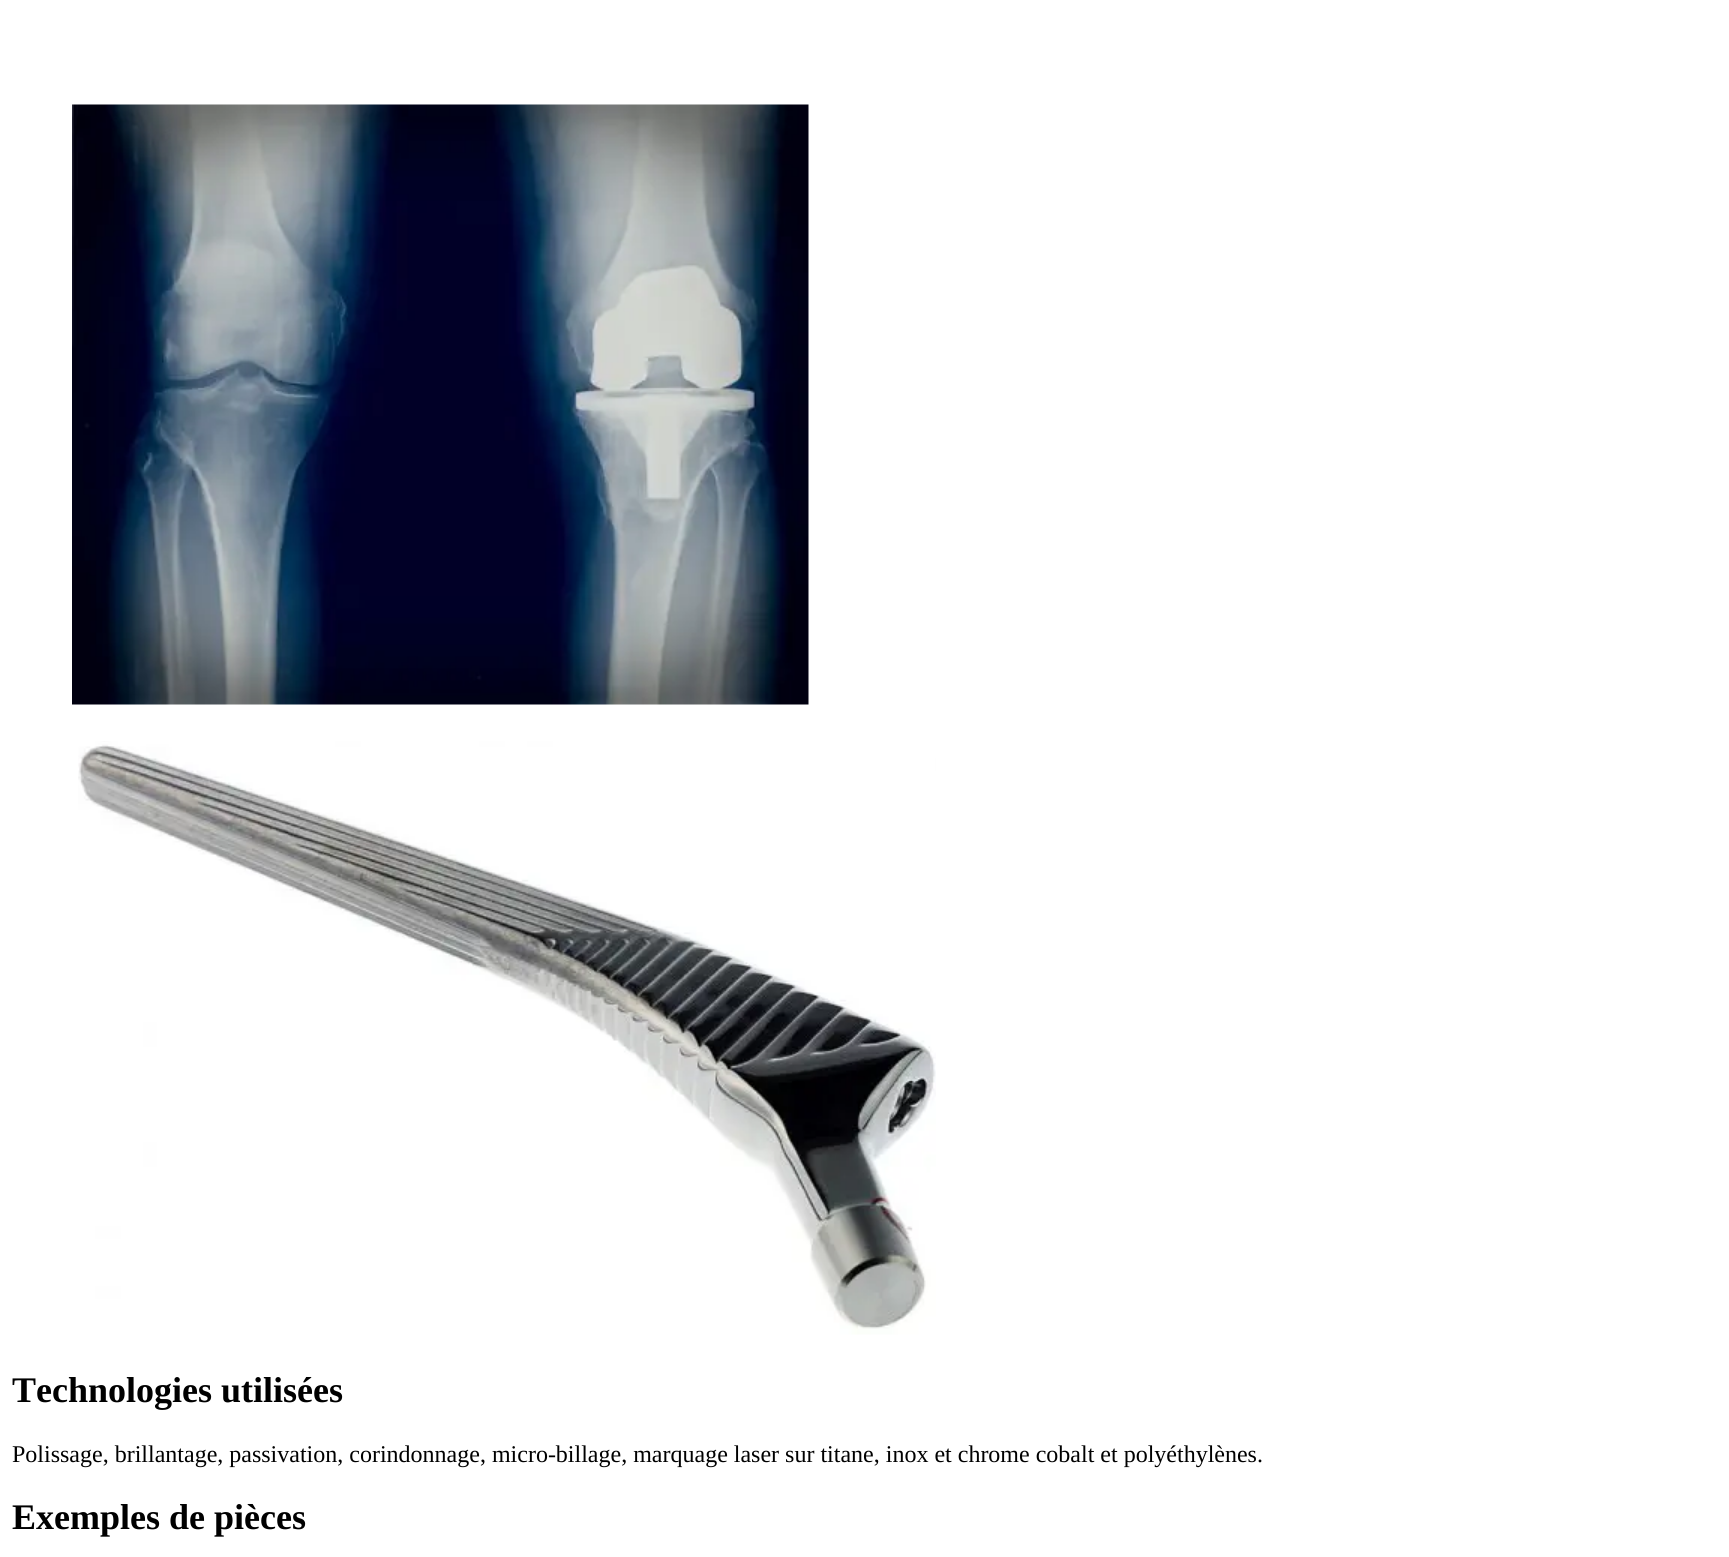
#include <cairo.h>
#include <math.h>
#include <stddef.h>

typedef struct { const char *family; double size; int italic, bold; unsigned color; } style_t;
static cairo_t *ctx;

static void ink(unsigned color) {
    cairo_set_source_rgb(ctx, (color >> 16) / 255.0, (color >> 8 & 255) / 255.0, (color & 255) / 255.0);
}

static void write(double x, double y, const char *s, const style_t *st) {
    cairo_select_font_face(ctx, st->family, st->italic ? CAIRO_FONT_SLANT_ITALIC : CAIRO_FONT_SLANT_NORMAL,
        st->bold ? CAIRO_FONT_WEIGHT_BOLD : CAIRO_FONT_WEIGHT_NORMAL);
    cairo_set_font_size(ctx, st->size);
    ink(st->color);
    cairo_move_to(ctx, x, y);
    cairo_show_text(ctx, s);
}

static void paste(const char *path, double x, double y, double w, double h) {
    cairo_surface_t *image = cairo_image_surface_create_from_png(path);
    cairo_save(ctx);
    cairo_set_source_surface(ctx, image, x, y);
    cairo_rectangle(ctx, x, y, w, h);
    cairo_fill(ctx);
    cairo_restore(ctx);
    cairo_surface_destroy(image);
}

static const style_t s1 = {"Liberation Serif", 36, 0, 1, 0x000000};
static const style_t s2 = {"Liberation Serif", 24, 0, 0, 0x000000};

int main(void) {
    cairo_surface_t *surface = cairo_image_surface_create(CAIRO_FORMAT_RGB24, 1729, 1557);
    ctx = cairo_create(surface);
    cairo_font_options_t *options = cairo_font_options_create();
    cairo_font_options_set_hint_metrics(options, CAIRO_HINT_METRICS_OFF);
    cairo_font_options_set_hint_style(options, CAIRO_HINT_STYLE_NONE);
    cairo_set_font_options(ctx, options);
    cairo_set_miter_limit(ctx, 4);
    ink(0xffffff);
    cairo_paint(ctx);
    paste("pic1.png", 72, 104, 737, 601);
    paste("pic2.png", 78, 741, 858, 594);
    write(12, 1402, "Technologies utilisées", &s1);
    write(12, 1462, "Polissage, brillantage, passivation, corindonnage, micro-billage, marquage laser sur titane, inox et chrome cobalt et polyéthylènes.", &s2);
    write(12, 1529, "Exemples de pièces", &s1);
    cairo_surface_write_to_png(surface, "screenshot.png");
    cairo_font_options_destroy(options);
    cairo_destroy(ctx);
    cairo_surface_destroy(surface);
    return 0;
}
